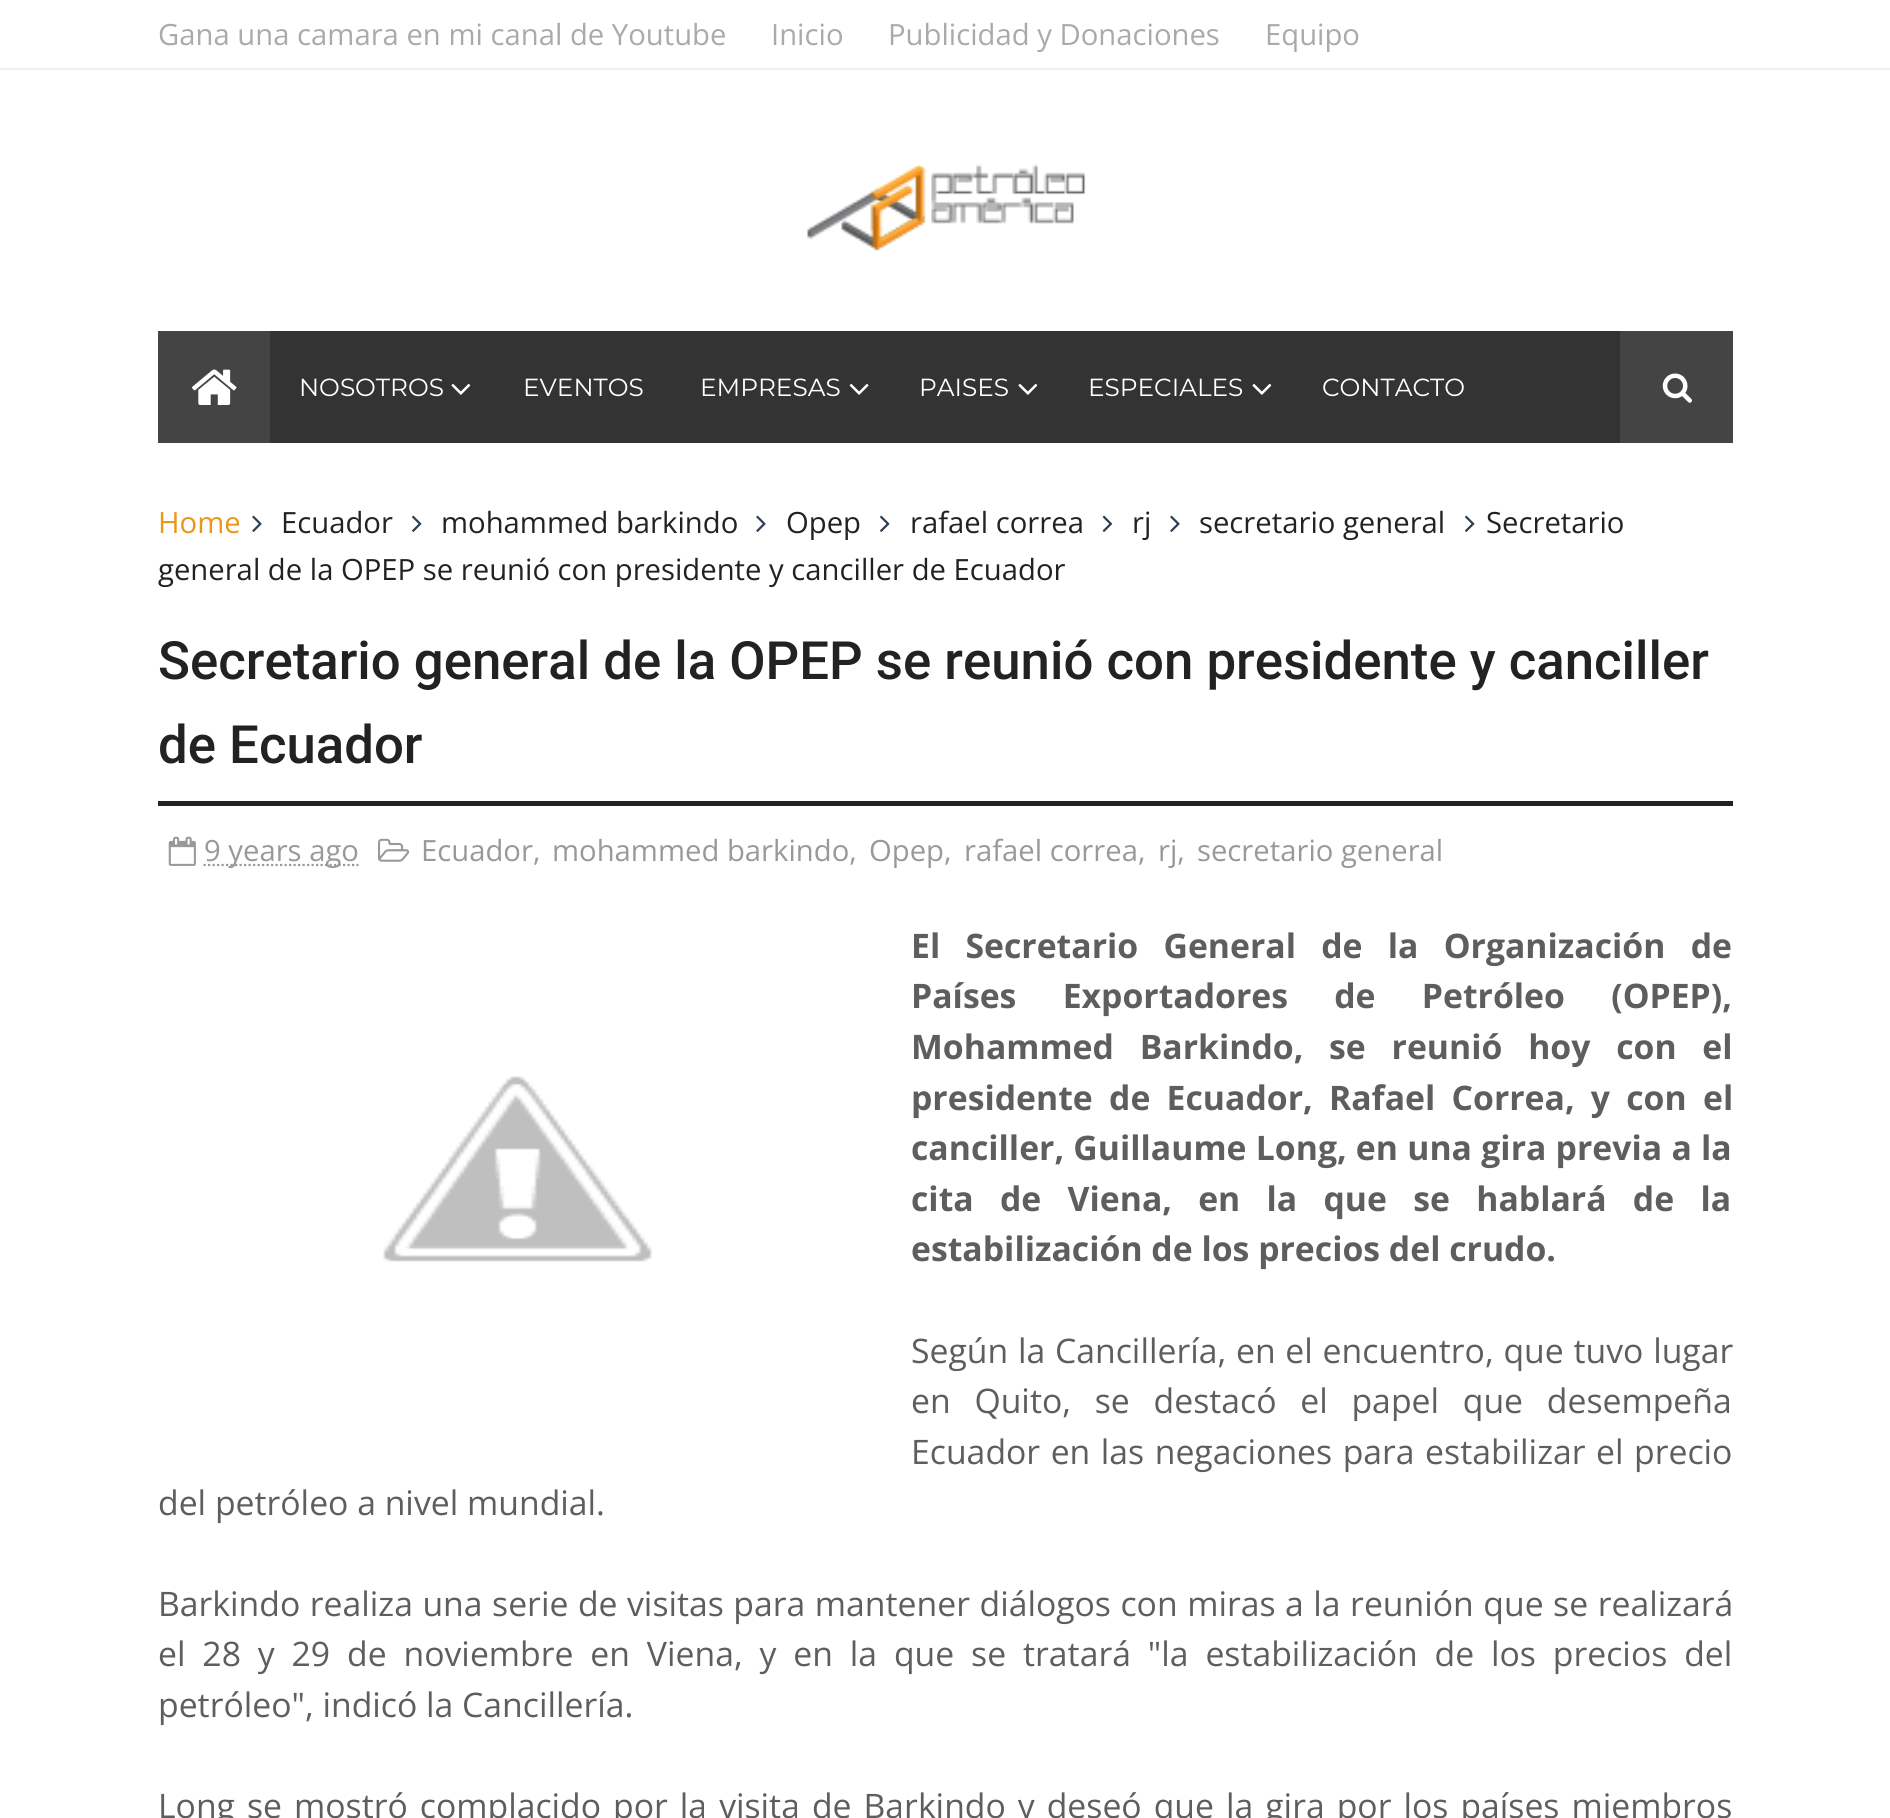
#include <cairo.h>
#include <math.h>
#include <stddef.h>

typedef struct { const char *family; double size; int italic, bold; unsigned color; } style_t;
static cairo_t *ctx;

static void ink(unsigned color) {
    cairo_set_source_rgb(ctx, (color >> 16) / 255.0, (color >> 8 & 255) / 255.0, (color & 255) / 255.0);
}

static void write(double x, double y, const char *s, const style_t *st) {
    cairo_select_font_face(ctx, st->family, st->italic ? CAIRO_FONT_SLANT_ITALIC : CAIRO_FONT_SLANT_NORMAL,
        st->bold ? CAIRO_FONT_WEIGHT_BOLD : CAIRO_FONT_WEIGHT_NORMAL);
    cairo_set_font_size(ctx, st->size);
    ink(st->color);
    cairo_move_to(ctx, x, y);
    cairo_show_text(ctx, s);
}

static void write_spaced(double x, double y, const char *s, double letter, double word) {
    cairo_move_to(ctx, x, y);
    while (*s) {
        char ch[5] = {0};
        int n = 0;
        do ch[n++] = *s++; while ((*s & 0xC0) == 0x80);
        cairo_show_text(ctx, ch);
        cairo_rel_move_to(ctx, letter + word * (*ch == ' '), 0);
    }
}

static void block(double x, double y, double w, double h, unsigned color) {
    ink(color);
    cairo_rectangle(ctx, x, y, w, h);
    cairo_fill(ctx);
}

static void paste(const char *path, double x, double y, double w, double h) {
    cairo_surface_t *image = cairo_image_surface_create_from_png(path);
    cairo_save(ctx);
    cairo_set_source_surface(ctx, image, x, y);
    cairo_rectangle(ctx, x, y, w, h);
    cairo_fill(ctx);
    cairo_restore(ctx);
    cairo_surface_destroy(image);
}

static const style_t s1 = {"Open Sans", 29.25, 0, 0, 0xaaaaaa};
static const style_t s2 = {"Montserrat", 24.75, 0, 0, 0xffffff};
static const style_t s3 = {"Open Sans", 29.25, 0, 0, 0xeb9519};
static const style_t s4 = {"Open Sans", 29.25, 0, 0, 0x222222};
static const style_t s5 = {"Roboto Medium", 52.75, 0, 0, 0x222222};
static const style_t s6 = {"Open Sans", 29.25, 0, 0, 0x999999};
static const style_t s7 = {"Open Sans", 33.75, 0, 1, 0x5e5e5e};
static const style_t s8 = {"Open Sans", 33.75, 0, 0, 0x5e5e5e};

int main(void) {
    cairo_surface_t *surface = cairo_image_surface_create(CAIRO_FORMAT_RGB24, 1890, 1818);
    ctx = cairo_create(surface);
    cairo_font_options_t *options = cairo_font_options_create();
    cairo_font_options_set_hint_metrics(options, CAIRO_HINT_METRICS_OFF);
    cairo_font_options_set_hint_style(options, CAIRO_HINT_STYLE_NONE);
    cairo_set_font_options(ctx, options);
    cairo_set_miter_limit(ctx, 4);
    ink(0xffffff);
    cairo_paint(ctx);
    block(0, 68, 1890, 2, 0xf0f0f0);
    write(158, 45, "Gana una camara en mi canal de Youtube", &s1);
    write(771, 45, "Inicio", &s1);
    write(888, 45, "Publicidad y Donaciones", &s1);
    write(1265, 45, "Equipo", &s1);
    paste("pic1.png", 807, 164, 279, 87);
    block(270, 331, 1350, 112, 0x333333);
    block(158, 331, 112, 112, 0x444444);
    paste("pic2.png", 192, 369, 45, 36);
    write(299, 396, "NOSOTROS", &s2);
    paste("pic3.png", 451, 383, 20, 12);
    write(523, 396, "EVENTOS", &s2);
    write(700, 396, "EMPRESAS", &s2);
    paste("pic4.png", 849, 383, 20, 12);
    write(919, 396, "PAISES", &s2);
    paste("pic3.png", 1018, 383, 20, 12);
    write(1088, 396, "ESPECIALES", &s2);
    paste("pic3.png", 1252, 383, 20, 12);
    write(1322, 396, "CONTACTO", &s2);
    block(1620, 331, 113, 112, 0x444444);
    paste("pic5.png", 1662, 373, 30, 30);
    write(158, 533, "Home", &s3);
    paste("pic6.png", 252, 515, 10, 17);
    write(281, 533, "Ecuador", &s4);
    paste("pic7.png", 412, 515, 10, 17);
    write(441, 533, "mohammed barkindo", &s4);
    paste("pic6.png", 756, 515, 10, 17);
    write(786, 533, "Opep", &s4);
    paste("pic7.png", 880, 515, 10, 17);
    write(910, 533, "rafael correa", &s4);
    paste("pic8.png", 1102, 515, 11, 17);
    write(1132, 533, "rj", &s4);
    paste("pic6.png", 1170, 515, 10, 17);
    write(1199, 533, "secretario general", &s4);
    paste("pic7.png", 1465, 515, 10, 17);
    write(1486, 533, "Secretario", &s4);
    write(158, 580, "general de la OPEP se reunió con presidente y canciller de Ecuador", &s4);
    block(158, 801, 1575, 5, 0x222222);
    write(158, 679, "Secretario general de la OPEP se reunió con presidente y canciller", &s5);
    write(158, 763, "de Ecuador", &s5);
    paste("pic9.png", 168, 836, 28, 30);
    cairo_new_path(ctx);
    cairo_move_to(ctx, 203.5, 865);
    cairo_line_to(ctx, 358.5, 865);
    ink(0x999999);
    cairo_set_line_width(ctx, 2.2);
    cairo_set_dash(ctx, (double[]){2.25, 2.25}, 2, 0);
    cairo_stroke(ctx);
    write(204, 861, "9 years ago", &s6);
    paste("pic10.png", 378, 838, 32, 24);
    write(421, 861, "Ecuador,", &s6);
    write(552, 861, "mohammed barkindo,", &s6);
    write(869, 861, "Opep,", &s6);
    write(964, 861, "rafael correa,", &s6);
    write(1158, 861, "rj,", &s6);
    write(1197, 861, "secretario general", &s6);
    cairo_select_font_face(ctx, "Open Sans", CAIRO_FONT_SLANT_NORMAL, CAIRO_FONT_WEIGHT_BOLD);
    cairo_set_font_size(ctx, 33.75);
    ink(0x5e5e5e);
    write_spaced(911, 958, "El Secretario General de la Organización de", 0, 16.5);
    write_spaced(911, 1008, "Países Exportadores de Petróleo (OPEP),", 0, 37.5);
    write_spaced(911, 1059, "Mohammed Barkindo, se reunió hoy con el", 0, 17);
    paste("pic11.png", 383, 1076, 269, 186);
    write_spaced(911, 1110, "presidente de Ecuador, Rafael Correa, y con el", 0, 7.5);
    write_spaced(911, 1160, "canciller, Guillaume Long, en una gira previa a la", 0, 0.5);
    write_spaced(911, 1211, "cita de Viena, en la que se hablará de la", 0, 17.5);
    write(911, 1261, "estabilización de los precios del crudo.", &s7);
    cairo_select_font_face(ctx, "Open Sans", CAIRO_FONT_SLANT_NORMAL, CAIRO_FONT_WEIGHT_NORMAL);
    write_spaced(911, 1363, "Según la Cancillería, en el encuentro, que tuvo lugar", 0, 1);
    write_spaced(911, 1413, "en Quito, se destacó el papel que desempeña", 0, 15);
    write_spaced(911, 1464, "Ecuador en las negaciones para estabilizar el precio", 0, 1.75);
    write(158, 1515, "del petróleo a nivel mundial.", &s8);
    write_spaced(158, 1616, "Barkindo realiza una serie de visitas para mantener diálogos con miras a la reunión que se realizará", 0, 0.75);
    write_spaced(158, 1666, "el 28 y 29 de noviembre en Viena, y en la que se tratará \"la estabilización de los precios del", 0, 8.1);
    write(158, 1717, "petróleo\", indicó la Cancillería.", &s8);
    write_spaced(158, 1818, "Long se mostró complacido por la visita de Barkindo y deseó que la gira por los países miembros", 0, 3.25);
    cairo_surface_write_to_png(surface, "screenshot.png");
    cairo_font_options_destroy(options);
    cairo_destroy(ctx);
    cairo_surface_destroy(surface);
    return 0;
}
